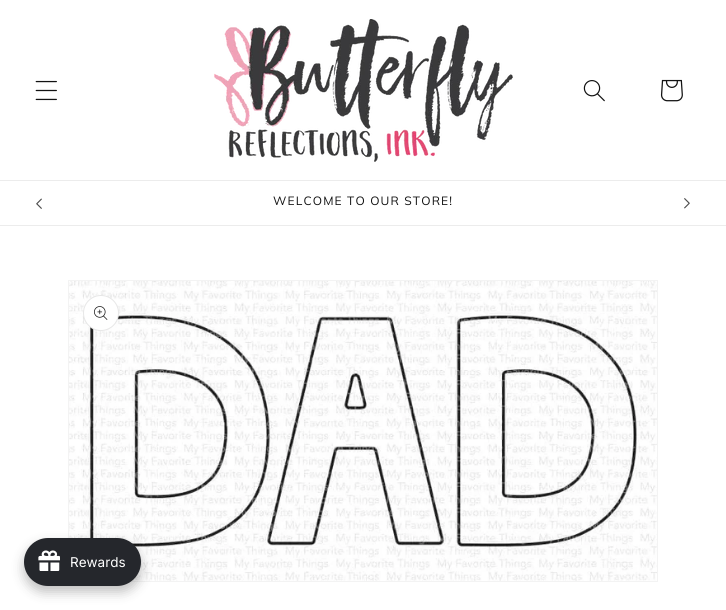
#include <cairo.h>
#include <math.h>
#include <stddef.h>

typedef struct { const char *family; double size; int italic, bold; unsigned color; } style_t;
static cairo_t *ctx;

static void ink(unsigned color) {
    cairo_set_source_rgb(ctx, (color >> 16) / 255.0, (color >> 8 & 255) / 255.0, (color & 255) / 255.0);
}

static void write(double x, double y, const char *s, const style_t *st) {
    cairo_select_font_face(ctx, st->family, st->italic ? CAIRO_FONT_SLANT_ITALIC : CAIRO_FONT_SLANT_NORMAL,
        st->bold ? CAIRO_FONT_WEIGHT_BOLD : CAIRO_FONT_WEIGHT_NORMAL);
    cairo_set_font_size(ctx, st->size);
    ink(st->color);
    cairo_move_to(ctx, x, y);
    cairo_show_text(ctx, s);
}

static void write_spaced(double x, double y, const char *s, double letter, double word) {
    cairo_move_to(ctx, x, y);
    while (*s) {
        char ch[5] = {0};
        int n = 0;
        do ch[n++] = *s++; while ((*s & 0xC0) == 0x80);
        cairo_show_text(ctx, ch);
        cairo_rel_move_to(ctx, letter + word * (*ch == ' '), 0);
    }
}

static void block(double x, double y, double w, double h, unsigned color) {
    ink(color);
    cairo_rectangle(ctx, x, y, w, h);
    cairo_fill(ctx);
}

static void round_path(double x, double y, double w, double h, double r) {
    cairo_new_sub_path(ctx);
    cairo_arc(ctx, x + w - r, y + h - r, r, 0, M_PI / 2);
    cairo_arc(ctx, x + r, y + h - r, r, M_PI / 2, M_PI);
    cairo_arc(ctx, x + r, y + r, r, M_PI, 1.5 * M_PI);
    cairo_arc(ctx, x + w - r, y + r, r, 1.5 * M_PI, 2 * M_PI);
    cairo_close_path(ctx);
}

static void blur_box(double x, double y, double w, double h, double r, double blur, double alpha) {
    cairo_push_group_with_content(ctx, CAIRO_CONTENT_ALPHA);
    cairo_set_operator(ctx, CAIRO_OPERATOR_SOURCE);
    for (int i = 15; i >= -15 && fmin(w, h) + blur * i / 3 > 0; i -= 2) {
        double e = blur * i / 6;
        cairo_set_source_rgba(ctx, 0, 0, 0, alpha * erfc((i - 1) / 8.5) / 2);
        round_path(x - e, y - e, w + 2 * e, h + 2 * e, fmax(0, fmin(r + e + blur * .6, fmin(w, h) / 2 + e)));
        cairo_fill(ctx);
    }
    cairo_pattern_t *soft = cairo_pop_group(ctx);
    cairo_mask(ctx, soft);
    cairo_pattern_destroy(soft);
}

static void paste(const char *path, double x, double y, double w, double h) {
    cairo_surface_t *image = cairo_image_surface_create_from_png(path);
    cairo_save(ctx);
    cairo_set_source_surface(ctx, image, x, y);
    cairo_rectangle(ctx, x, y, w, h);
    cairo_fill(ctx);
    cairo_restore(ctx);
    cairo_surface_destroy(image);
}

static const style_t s1 = {"Inter", 13.5, 0, 0, 0xffffff};

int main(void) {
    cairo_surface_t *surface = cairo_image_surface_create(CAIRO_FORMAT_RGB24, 726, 610);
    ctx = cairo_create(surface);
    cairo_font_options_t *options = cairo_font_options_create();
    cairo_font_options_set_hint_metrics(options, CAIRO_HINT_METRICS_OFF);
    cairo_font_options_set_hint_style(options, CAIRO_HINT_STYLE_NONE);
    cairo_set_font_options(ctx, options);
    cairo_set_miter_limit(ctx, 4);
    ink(0xffffff);
    cairo_paint(ctx);
    block(0, 180, 726, 1, 0xececec);
    paste("pic1.png", 35, 80, 22, 21);
    paste("pic2.png", 214, 19, 299, 143);
    paste("pic3.png", 583, 80, 22, 22);
    paste("pic4.png", 660, 79, 23, 23);
    block(0, 225, 726, 1, 0xececec);
    paste("pic5.png", 36, 198, 6, 11);
    cairo_select_font_face(ctx, "Muli", CAIRO_FONT_SLANT_NORMAL, CAIRO_FONT_WEIGHT_NORMAL);
    cairo_set_font_size(ctx, 12);
    ink(0x121212);
    write_spaced(273, 205, "WELCOME TO OUR STORE!", 1.15, 0);
    paste("pic6.png", 684, 198, 6, 11);
    cairo_rectangle(ctx, 68.5, 280.5, 589, 301);
    ink(0xf3f3f3);
    cairo_set_line_width(ctx, 1);
    cairo_stroke(ctx);
    paste("pic7.png", 69, 281, 588, 300);
    ink(0xffffff);
    cairo_arc(ctx, 101, 313, 18, 0, 2 * M_PI);
    cairo_fill(ctx);
    cairo_arc(ctx, 101, 313, 17.5, 0, 2 * M_PI);
    cairo_set_source_rgba(ctx, 0.071, 0.071, 0.071, 0.1);
    cairo_stroke(ctx);
    paste("pic8.png", 94, 306, 14, 14);
    ink(0x000000);
    blur_box(24, 544, 117, 48, 24, 6, 0.25);
    ink(0x25272c);
    round_path(24, 538, 117, 48, 24);
    cairo_fill(ctx);
    paste("pic9.png", 38, 550, 22, 21);
    write(70, 567, "Rewards", &s1);
    cairo_surface_write_to_png(surface, "screenshot.png");
    cairo_font_options_destroy(options);
    cairo_destroy(ctx);
    cairo_surface_destroy(surface);
    return 0;
}
